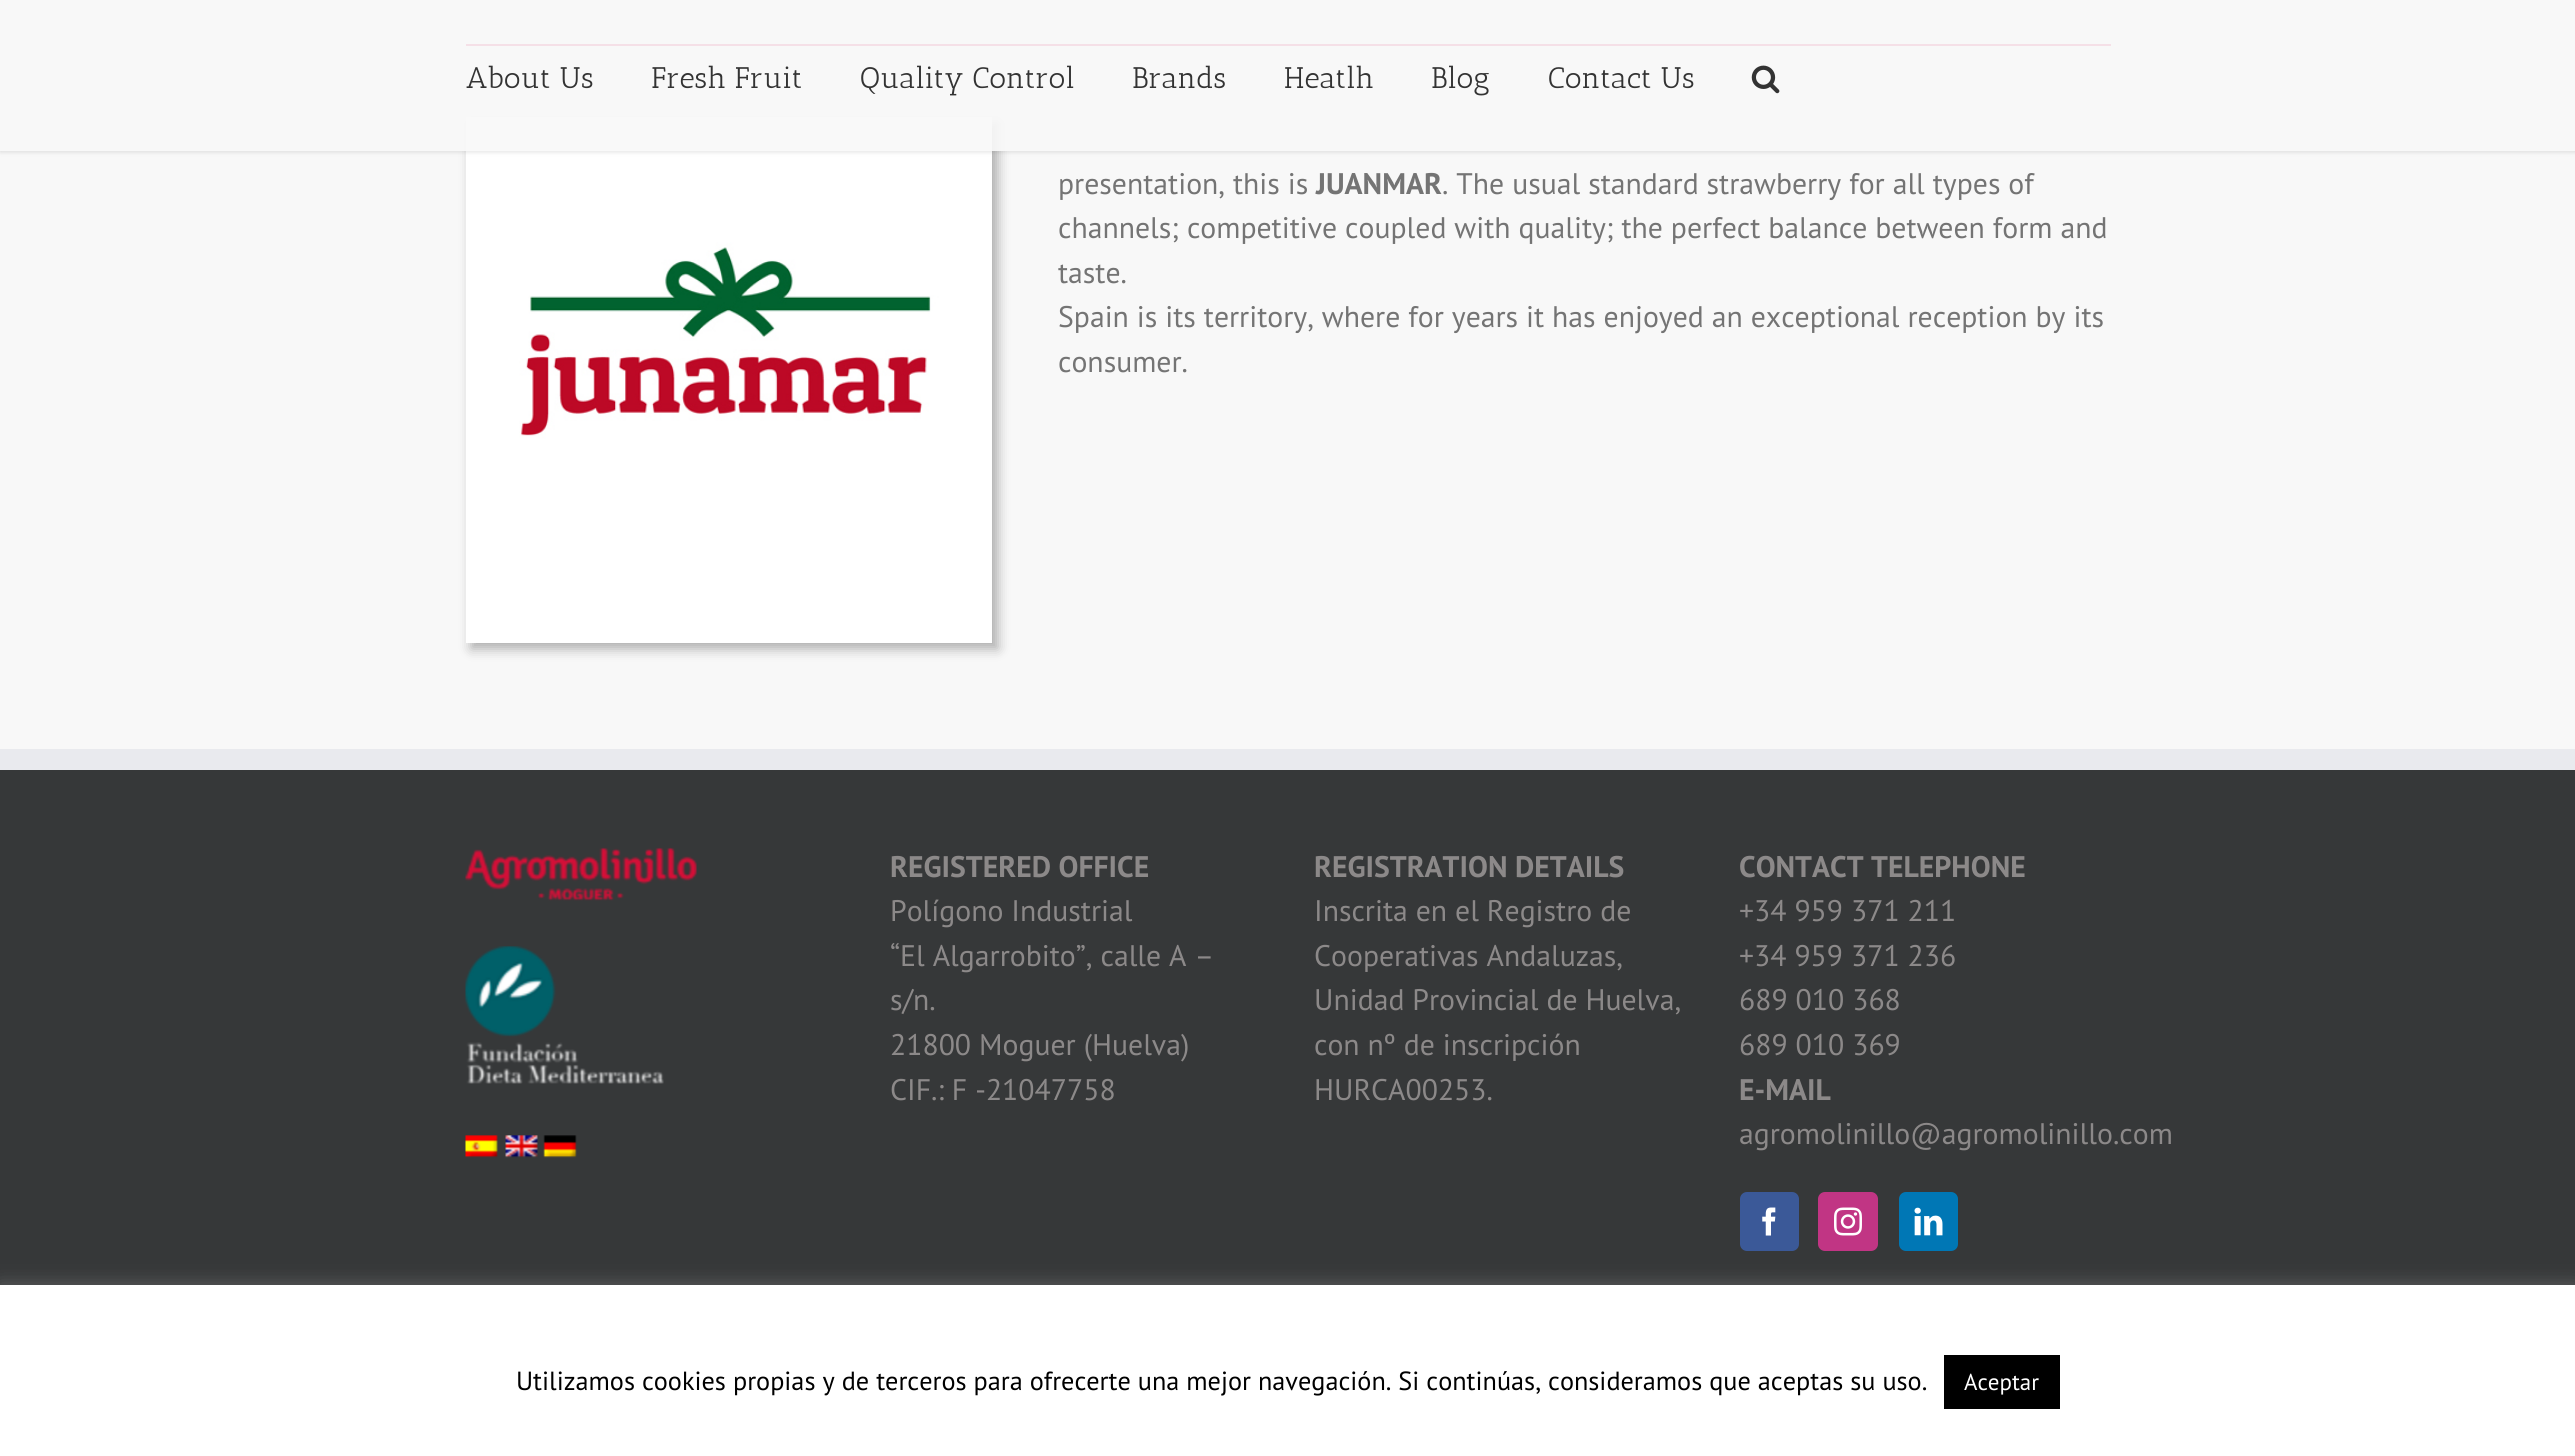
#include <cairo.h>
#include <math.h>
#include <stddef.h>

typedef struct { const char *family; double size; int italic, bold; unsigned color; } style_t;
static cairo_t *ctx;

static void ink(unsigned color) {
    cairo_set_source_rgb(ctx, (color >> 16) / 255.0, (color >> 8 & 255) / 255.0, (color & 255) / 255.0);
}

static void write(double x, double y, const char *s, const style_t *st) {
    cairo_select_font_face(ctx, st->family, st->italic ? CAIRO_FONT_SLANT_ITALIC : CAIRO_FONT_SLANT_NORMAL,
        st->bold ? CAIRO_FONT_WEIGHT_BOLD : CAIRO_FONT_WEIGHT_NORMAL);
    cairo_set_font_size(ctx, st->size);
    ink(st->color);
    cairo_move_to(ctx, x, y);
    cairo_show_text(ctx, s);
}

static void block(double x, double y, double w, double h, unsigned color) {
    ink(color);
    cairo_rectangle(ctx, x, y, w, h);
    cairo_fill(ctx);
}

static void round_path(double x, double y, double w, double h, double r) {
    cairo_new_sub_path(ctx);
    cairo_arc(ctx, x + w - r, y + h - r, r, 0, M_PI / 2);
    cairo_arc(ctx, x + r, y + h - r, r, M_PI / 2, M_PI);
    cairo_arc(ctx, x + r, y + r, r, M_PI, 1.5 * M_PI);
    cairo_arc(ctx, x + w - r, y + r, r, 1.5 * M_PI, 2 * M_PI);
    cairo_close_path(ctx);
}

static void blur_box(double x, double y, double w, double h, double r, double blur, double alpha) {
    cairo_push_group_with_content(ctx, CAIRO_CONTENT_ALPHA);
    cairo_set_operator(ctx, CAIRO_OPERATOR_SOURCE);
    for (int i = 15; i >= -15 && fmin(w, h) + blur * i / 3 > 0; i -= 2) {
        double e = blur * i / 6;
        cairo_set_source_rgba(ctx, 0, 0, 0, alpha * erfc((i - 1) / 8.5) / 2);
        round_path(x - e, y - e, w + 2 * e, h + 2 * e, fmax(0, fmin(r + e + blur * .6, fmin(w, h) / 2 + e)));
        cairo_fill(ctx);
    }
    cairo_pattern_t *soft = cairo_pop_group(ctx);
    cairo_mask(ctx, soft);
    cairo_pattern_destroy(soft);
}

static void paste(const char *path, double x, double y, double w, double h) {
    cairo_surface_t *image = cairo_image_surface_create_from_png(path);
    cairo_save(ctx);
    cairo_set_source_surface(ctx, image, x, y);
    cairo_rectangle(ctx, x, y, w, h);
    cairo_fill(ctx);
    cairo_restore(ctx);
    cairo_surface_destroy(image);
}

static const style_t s1 = {"Antic Slab", 29.75, 0, 0, 0x333333};
static const style_t s2 = {"PT Sans", 29.75, 0, 0, 0x747474};
static const style_t s3 = {"PT Sans", 29.75, 0, 1, 0x747474};
static const style_t s4 = {"PT Sans", 29.75, 0, 1, 0x8c8989};
static const style_t s5 = {"PT Sans", 29.75, 0, 0, 0x8c8989};
static const style_t s6 = {"PT Sans", 26.25, 0, 0, 0x000000};
static const style_t s7 = {"PT Sans", 23, 0, 0, 0xffffff};

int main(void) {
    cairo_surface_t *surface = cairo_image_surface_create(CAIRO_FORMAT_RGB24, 2575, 1456);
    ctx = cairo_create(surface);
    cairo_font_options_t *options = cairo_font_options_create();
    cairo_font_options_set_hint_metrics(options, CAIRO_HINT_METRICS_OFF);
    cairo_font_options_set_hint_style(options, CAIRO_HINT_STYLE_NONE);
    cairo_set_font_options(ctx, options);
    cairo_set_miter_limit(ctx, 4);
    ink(0xf8f8f8);
    cairo_paint(ctx);
    block(466, 44, 1645, 2, 0xd5004c);
    ink(0x000000);
    blur_box(471, 123, 527, 526, 0, 6, 0.3);
    paste("pic2.png", 466, 117, 526, 526);
    cairo_save(ctx);
    cairo_set_fill_rule(ctx, CAIRO_FILL_RULE_EVEN_ODD);
    cairo_new_path(ctx);
    cairo_move_to(ctx, 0, 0);
    cairo_line_to(ctx, 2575, 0);
    cairo_line_to(ctx, 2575, 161);
    cairo_line_to(ctx, 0, 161);
    cairo_close_path(ctx);
    cairo_move_to(ctx, 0, 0);
    cairo_line_to(ctx, 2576, 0);
    cairo_line_to(ctx, 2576, 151);
    cairo_line_to(ctx, 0, 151);
    cairo_close_path(ctx);
    cairo_clip(ctx);
    blur_box(0, 2, 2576, 150, 0, 2.5, 0.12);
    cairo_restore(ctx);
    cairo_set_source_rgba(ctx, 0.973, 0.973, 0.973, 0.9);
    cairo_rectangle(ctx, 0, 44, 2575, 107);
    cairo_fill(ctx);
    write(466, 88, "About Us", &s1);
    write(651, 88, "Fresh Fruit", &s1);
    write(860, 88, "Quality Control", &s1);
    write(1132, 88, "Brands", &s1);
    write(1284, 88, "Heatlh", &s1);
    write(1431, 88, "Blog", &s1);
    write(1548, 88, "Contact Us", &s1);
    paste("pic1.png", 1751, 65, 29, 29);
    write(1058, 194, "presentation, this is", &s2);
    write(1316, 194, "JUANMAR", &s3);
    write(1442, 194, ". The usual standard strawberry for all types of", &s2);
    write(1058, 238, "channels; competitive coupled with quality; the perfect balance between form and", &s2);
    write(1058, 283, "taste.", &s2);
    write(1058, 327, "Spain is its territory, where for years it has enjoyed an exceptional reception by its", &s2);
    write(1058, 372, "consumer.", &s2);
    block(0, 770, 2575, 515, 0x363839);
    block(0, 749, 2575, 21, 0xe9eaee);
    paste("pic3.png", 465, 847, 232, 54);
    paste("pic4.png", 465, 946, 199, 138);
    paste("pic5.png", 465, 1135, 33, 23);
    paste("pic6.png", 505, 1135, 33, 23);
    paste("pic7.png", 543, 1135, 34, 23);
    write(890, 877, "REGISTERED OFFICE", &s4);
    write(890, 921, "Polígono Industrial", &s5);
    write(890, 966, "“El Algarrobito”, calle A –", &s5);
    write(890, 1010, "s/n.", &s5);
    write(890, 1055, "21800 Moguer (Huelva)", &s5);
    write(890, 1100, "CIF.: F -21047758", &s5);
    write(1314, 877, "REGISTRATION DETAILS", &s4);
    write(1314, 921, "Inscrita en el Registro de", &s5);
    write(1314, 966, "Cooperativas Andaluzas,", &s5);
    write(1314, 1010, "Unidad Provincial de Huelva,", &s5);
    write(1314, 1055, "con nº de inscripción", &s5);
    write(1314, 1100, "HURCA00253.", &s5);
    write(1739, 877, "CONTACT TELEPHONE", &s4);
    write(1739, 921, "+34 959 371 211", &s5);
    write(1739, 966, "+34 959 371 236", &s5);
    write(1739, 1010, "689 010 368", &s5);
    write(1739, 1055, "689 010 369", &s5);
    write(1739, 1100, "E-MAIL", &s4);
    write(1739, 1144, "agromolinillo@agromolinillo.com", &s5);
    ink(0x3b5998);
    round_path(1741, 1193, 57, 57, 6);
    cairo_fill_preserve(ctx);
    cairo_stroke(ctx);
    paste("pic8.png", 1762, 1207, 14, 29);
    ink(0xc13584);
    round_path(1819, 1193, 58, 57, 6);
    cairo_fill_preserve(ctx);
    cairo_stroke(ctx);
    paste("pic9.png", 1834, 1207, 28, 29);
    ink(0x0077b5);
    round_path(1900, 1193, 57, 57, 6);
    cairo_fill_preserve(ctx);
    cairo_stroke(ctx);
    paste("pic10.png", 1914, 1207, 29, 29);
    ink(0xacabab);
    blur_box(0, 1283, 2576, 171, 0, 9, 0.3);
    block(0, 1285, 2575, 171, 0xffffff);
    write(516, 1390, "Utilizamos cookies propias y de terceros para ofrecerte una mejor navegación. Si continúas, consideramos que aceptas su uso.", &s6);
    block(1944, 1355, 116, 54, 0x000000);
    write(1964, 1390, "Aceptar", &s7);
    cairo_surface_write_to_png(surface, "screenshot.png");
    cairo_font_options_destroy(options);
    cairo_destroy(ctx);
    cairo_surface_destroy(surface);
    return 0;
}
